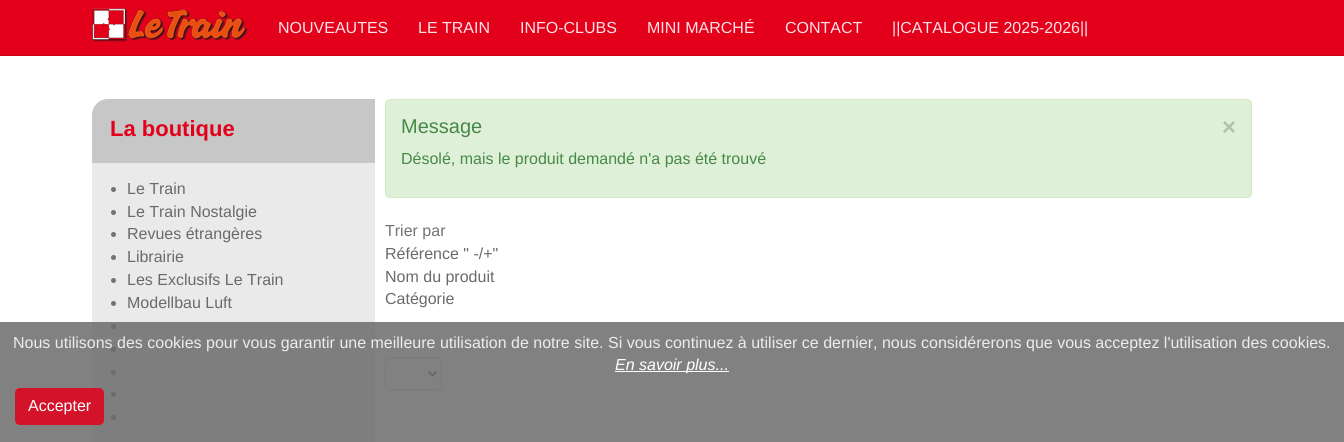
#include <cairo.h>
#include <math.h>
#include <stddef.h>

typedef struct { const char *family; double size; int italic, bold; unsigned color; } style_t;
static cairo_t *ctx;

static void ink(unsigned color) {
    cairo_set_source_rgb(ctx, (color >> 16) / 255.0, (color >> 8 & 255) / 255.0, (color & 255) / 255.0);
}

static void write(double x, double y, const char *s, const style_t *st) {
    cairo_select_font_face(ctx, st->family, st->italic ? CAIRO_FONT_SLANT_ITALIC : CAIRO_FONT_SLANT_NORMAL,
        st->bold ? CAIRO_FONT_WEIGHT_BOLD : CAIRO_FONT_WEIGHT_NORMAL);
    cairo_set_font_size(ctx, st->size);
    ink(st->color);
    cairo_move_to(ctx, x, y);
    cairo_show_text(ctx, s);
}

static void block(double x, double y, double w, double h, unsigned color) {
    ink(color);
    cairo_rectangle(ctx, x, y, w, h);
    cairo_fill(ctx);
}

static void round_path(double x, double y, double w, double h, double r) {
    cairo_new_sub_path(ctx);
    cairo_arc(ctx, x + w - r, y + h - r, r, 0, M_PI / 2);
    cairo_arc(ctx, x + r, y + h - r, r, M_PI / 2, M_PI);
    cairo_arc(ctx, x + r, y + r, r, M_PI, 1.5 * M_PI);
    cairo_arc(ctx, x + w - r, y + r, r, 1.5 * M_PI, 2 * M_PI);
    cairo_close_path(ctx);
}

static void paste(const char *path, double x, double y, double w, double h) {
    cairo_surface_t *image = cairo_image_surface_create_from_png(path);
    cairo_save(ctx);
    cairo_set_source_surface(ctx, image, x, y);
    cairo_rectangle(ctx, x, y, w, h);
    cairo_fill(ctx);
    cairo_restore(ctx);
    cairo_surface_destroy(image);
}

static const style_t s1 = {"Liberation Sans", 16, 0, 0, 0xffe2e5};
static const style_t s2 = {"Liberation Sans", 22, 0, 1, 0xe2001a};
static const style_t s3 = {"Liberation Sans", 16, 0, 0, 0x6a6a6b};
static const style_t s4 = {"Liberation Sans", 20, 0, 0, 0x468847};
static const style_t s5 = {"Liberation Sans", 24, 0, 1, 0xb2c0ad};
static const style_t s6 = {"Liberation Sans", 16, 0, 0, 0x468847};
static const style_t s7 = {"Liberation Sans", 16, 0, 0, 0x737373};
static const style_t s8 = {"Liberation Sans", 16, 0, 0, 0xececec};
static const style_t s9 = {"Liberation Sans", 16, 1, 0, 0xffffff};
static const style_t s10 = {"Liberation Sans", 16, 0, 0, 0xffffff};

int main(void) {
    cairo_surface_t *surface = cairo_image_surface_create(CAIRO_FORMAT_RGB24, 1344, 442);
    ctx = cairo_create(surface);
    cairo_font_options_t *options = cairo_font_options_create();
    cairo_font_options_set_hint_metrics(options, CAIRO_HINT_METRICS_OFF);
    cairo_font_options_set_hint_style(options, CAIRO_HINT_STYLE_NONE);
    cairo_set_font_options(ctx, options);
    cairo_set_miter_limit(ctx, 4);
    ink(0xffffff);
    cairo_paint(ctx);
    block(0, 0, 1344, 55, 0xe2001a);
    block(0, 55, 1344, 1, 0xc90017);
    paste("pic1.png", 92, 0, 156, 42);
    write(278, 33, "NOUVEAUTES", &s1);
    write(418, 33, "LE TRAIN", &s1);
    write(520, 33, "INFO-CLUBS", &s1);
    write(647, 33, "MINI MARCHÉ", &s1);
    write(785, 33, "CONTACT", &s1);
    write(892, 33, "||CATALOGUE 2025-2026||", &s1);
    ink(0xc7c7c7);
    cairo_new_path(ctx);
    cairo_move_to(ctx, 108, 99);
    cairo_line_to(ctx, 375, 99);
    cairo_line_to(ctx, 375, 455);
    cairo_line_to(ctx, 92, 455);
    cairo_line_to(ctx, 92, 115);
    cairo_curve_to(ctx, 92, 106, 99, 99, 108, 99);
    cairo_close_path(ctx);
    cairo_fill(ctx);
    write(110, 136, "La boutique", &s2);
    block(92, 163, 283, 279, 0xeaeaea);
    ink(0x737373);
    cairo_new_path(ctx);
    cairo_arc(ctx, 113.5, 189.5, 2.5, 0, 2 * M_PI);
    cairo_fill(ctx);
    write(127, 194, "Le Train", &s3);
    ink(0x737373);
    cairo_new_path(ctx);
    cairo_arc(ctx, 113.5, 212.5, 2.5, 0, 2 * M_PI);
    cairo_fill(ctx);
    write(127, 217, "Le Train Nostalgie", &s3);
    ink(0x737373);
    cairo_new_path(ctx);
    cairo_arc(ctx, 113.5, 234.5, 2.5, 0, 2 * M_PI);
    cairo_fill(ctx);
    write(127, 239, "Revues étrangères", &s3);
    ink(0x737373);
    cairo_new_path(ctx);
    cairo_arc(ctx, 113.5, 257.5, 2.5, 0, 2 * M_PI);
    cairo_fill(ctx);
    write(127, 262, "Librairie", &s3);
    ink(0x737373);
    cairo_new_path(ctx);
    cairo_arc(ctx, 113.5, 280.5, 2.5, 0, 2 * M_PI);
    cairo_fill(ctx);
    write(127, 285, "Les Exclusifs Le Train", &s3);
    ink(0x737373);
    cairo_new_path(ctx);
    cairo_arc(ctx, 113.5, 303.5, 2.5, 0, 2 * M_PI);
    cairo_fill(ctx);
    write(127, 308, "Modellbau Luft", &s3);
    ink(0x737373);
    cairo_new_path(ctx);
    cairo_arc(ctx, 113.5, 326.5, 2.5, 0, 2 * M_PI);
    cairo_fill(ctx);
    cairo_arc(ctx, 113.5, 349.5, 2.5, 0, 2 * M_PI);
    cairo_fill(ctx);
    cairo_arc(ctx, 113.5, 372.5, 2.5, 0, 2 * M_PI);
    cairo_fill(ctx);
    cairo_arc(ctx, 113.5, 394.5, 2.5, 0, 2 * M_PI);
    cairo_fill(ctx);
    cairo_arc(ctx, 113.5, 417.5, 2.5, 0, 2 * M_PI);
    cairo_fill(ctx);
    ink(0xdff0d8);
    round_path(385.5, 99.5, 866, 98, 4.5);
    cairo_fill_preserve(ctx);
    ink(0xd6e9c6);
    cairo_set_line_width(ctx, 1);
    cairo_stroke(ctx);
    write(401, 133, "Message", &s4);
    write(1222, 135, "×", &s5);
    write(401, 164, "Désolé, mais le produit demandé n'a pas été trouvé", &s6);
    write(385, 236, "Trier par", &s7);
    write(385, 259, "Référence \" -/+\"", &s3);
    write(385, 282, "Nom du produit", &s3);
    write(385, 304, "Catégorie", &s3);
    ink(0xececec);
    cairo_new_path(ctx);
    cairo_move_to(ctx, 390, 359);
    cairo_line_to(ctx, 437, 359);
    cairo_curve_to(ctx, 439, 359, 441, 361, 441, 363);
    cairo_curve_to(ctx, 441, 356, 434, 358, 429, 358);
    cairo_line_to(ctx, 398, 358);
    cairo_curve_to(ctx, 393, 358, 386, 356, 386, 363);
    cairo_curve_to(ctx, 386, 361, 388, 359, 390, 359);
    cairo_close_path(ctx);
    cairo_fill(ctx);
    round_path(385.5, 357.5, 56, 32, 4.5);
    ink(0xcccccc);
    cairo_stroke(ctx);
    cairo_new_path(ctx);
    cairo_move_to(ctx, 428.5, 371.5);
    cairo_line_to(ctx, 432.5, 375.5);
    cairo_line_to(ctx, 436.5, 371.5);
    ink(0x666666);
    cairo_set_line_width(ctx, 2);
    cairo_stroke(ctx);
    cairo_set_source_rgba(ctx, 0.42, 0.42, 0.42, 0.85);
    cairo_rectangle(ctx, 0, 322, 1344, 120);
    cairo_fill(ctx);
    write(13, 348, "Nous utilisons des cookies pour vous garantir une meilleure utilisation de notre site. Si vous continuez à utiliser ce dernier, nous considérerons que vous acceptez l'utilisation des cookies.", &s8);
    block(615, 371, 114, 1, 0xffffff);
    write(615, 370, "En savoir plus...", &s9);
    cairo_set_source_rgba(ctx, 0.886, 0, 0.102, 0.85);
    round_path(15, 388, 89, 37, 5);
    cairo_fill(ctx);
    write(28, 411, "Accepter", &s10);
    cairo_surface_write_to_png(surface, "screenshot.png");
    cairo_font_options_destroy(options);
    cairo_destroy(ctx);
    cairo_surface_destroy(surface);
    return 0;
}
